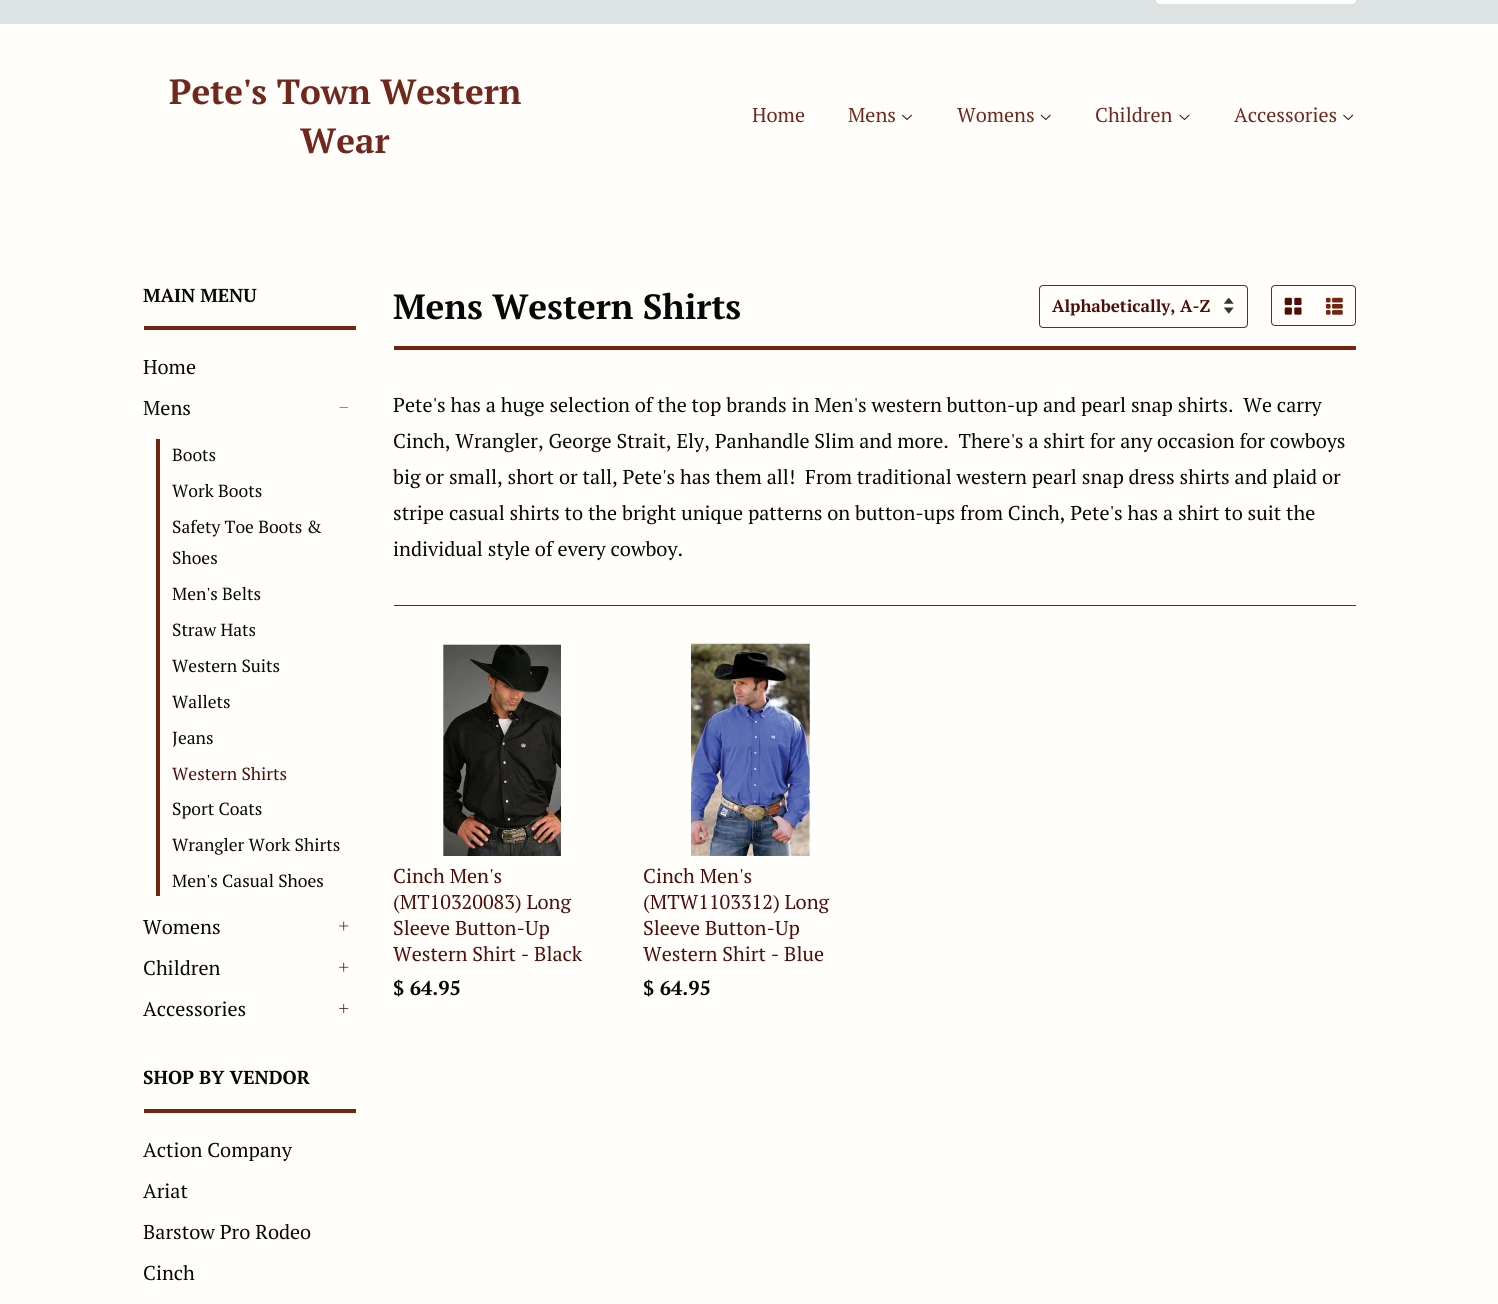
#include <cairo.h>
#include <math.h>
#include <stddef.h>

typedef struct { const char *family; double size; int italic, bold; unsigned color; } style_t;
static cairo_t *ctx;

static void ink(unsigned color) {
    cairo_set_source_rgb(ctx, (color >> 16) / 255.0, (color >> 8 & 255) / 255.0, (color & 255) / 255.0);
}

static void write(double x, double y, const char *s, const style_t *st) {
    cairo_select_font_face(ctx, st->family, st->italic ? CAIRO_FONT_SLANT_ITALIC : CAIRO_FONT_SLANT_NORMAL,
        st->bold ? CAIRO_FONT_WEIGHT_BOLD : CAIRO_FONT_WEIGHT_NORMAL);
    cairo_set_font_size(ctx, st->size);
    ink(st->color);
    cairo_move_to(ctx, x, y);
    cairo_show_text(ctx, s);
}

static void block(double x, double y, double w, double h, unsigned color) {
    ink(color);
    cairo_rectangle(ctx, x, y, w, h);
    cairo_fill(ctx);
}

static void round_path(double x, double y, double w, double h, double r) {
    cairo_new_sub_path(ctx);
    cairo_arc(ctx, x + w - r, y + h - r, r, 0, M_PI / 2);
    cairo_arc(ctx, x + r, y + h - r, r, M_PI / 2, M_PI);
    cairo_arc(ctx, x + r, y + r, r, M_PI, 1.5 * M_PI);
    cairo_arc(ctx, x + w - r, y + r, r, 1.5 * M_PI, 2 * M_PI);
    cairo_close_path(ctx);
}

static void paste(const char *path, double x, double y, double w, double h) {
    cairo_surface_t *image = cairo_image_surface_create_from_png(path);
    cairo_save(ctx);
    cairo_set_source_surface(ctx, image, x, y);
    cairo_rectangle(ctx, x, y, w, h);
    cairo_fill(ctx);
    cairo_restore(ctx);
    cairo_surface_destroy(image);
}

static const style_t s1 = {"PT Serif", 35, 0, 1, 0x70281d};
static const style_t s2 = {"PT Serif", 20, 0, 0, 0x70281d};
static const style_t s3 = {"PT Serif", 18.75, 0, 1, 0x070707};
static const style_t s4 = {"PT Serif", 20, 0, 0, 0x070707};
static const style_t s5 = {"PT Serif", 17.5, 0, 0, 0x070707};
static const style_t s6 = {"PT Serif", 17.5, 0, 0, 0x4e0e06};
static const style_t s7 = {"PT Serif", 35, 0, 1, 0x070707};
static const style_t s8 = {"PT Serif", 17, 0, 1, 0x4e0e06};
static const style_t s9 = {"PT Serif", 20, 0, 0, 0x4e0e06};
static const style_t s10 = {"PT Serif", 20, 0, 1, 0x070707};

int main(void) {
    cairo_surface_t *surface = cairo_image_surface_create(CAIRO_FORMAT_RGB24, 1498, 1304);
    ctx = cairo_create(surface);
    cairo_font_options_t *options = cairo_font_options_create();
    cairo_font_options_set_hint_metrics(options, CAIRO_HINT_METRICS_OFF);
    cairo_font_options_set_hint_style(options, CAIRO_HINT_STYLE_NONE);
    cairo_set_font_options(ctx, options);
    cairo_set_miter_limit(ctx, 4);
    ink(0xfffefb);
    cairo_paint(ctx);
    block(0, 0, 1498, 24, 0xdde3e3);
    ink(0xffffff);
    round_path(1156, -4, 200, 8, 4);
    cairo_fill(ctx);
    write(169, 104, "Pete's Town Western", &s1);
    write(300, 153, "Wear", &s1);
    write(752, 122, "Home", &s2);
    write(848, 122, "Mens", &s2);
    paste("pic1.png", 902, 114, 10, 7);
    write(957, 122, "Womens", &s2);
    paste("pic2.png", 1040, 114, 11, 7);
    write(1095, 122, "Children", &s2);
    paste("pic3.png", 1179, 114, 11, 7);
    write(1234, 122, "Accessories", &s2);
    paste("pic4.png", 1343, 114, 11, 7);
    block(144, 326, 212, 4, 0x75250f);
    write(143, 302, "MAIN MENU", &s3);
    write(143, 374, "Home", &s4);
    write(143, 415, "Mens", &s4);
    ink(0x4e0e06);
    cairo_new_path(ctx);
    cairo_move_to(ctx, 339.5, 407);
    cairo_line_to(ctx, 348, 407);
    cairo_line_to(ctx, 348, 407.5);
    cairo_line_to(ctx, 339.5, 407.5);
    cairo_close_path(ctx);
    cairo_fill(ctx);
    block(156, 439, 4, 457, 0x75250f);
    write(172, 461, "Boots", &s5);
    write(172, 497, "Work Boots", &s5);
    write(172, 533, "Safety Toe Boots &", &s5);
    write(172, 564, "Shoes", &s5);
    write(172, 600, "Men's Belts", &s5);
    write(172, 636, "Straw Hats", &s5);
    write(172, 672, "Western Suits", &s5);
    write(172, 708, "Wallets", &s5);
    write(172, 744, "Jeans", &s5);
    write(172, 780, "Western Shirts", &s6);
    write(172, 815, "Sport Coats", &s5);
    write(172, 851, "Wrangler Work Shirts", &s5);
    write(172, 887, "Men's Casual Shoes", &s5);
    write(143, 934, "Womens", &s4);
    paste("pic5.png", 339, 921, 10, 10);
    write(143, 975, "Children", &s4);
    paste("pic6.png", 339, 962, 10, 10);
    write(143, 1016, "Accessories", &s4);
    paste("pic7.png", 339, 1004, 10, 9);
    block(144, 1109, 212, 4, 0x75250f);
    write(143, 1084, "SHOP BY VENDOR", &s3);
    write(143, 1157, "Action Company", &s4);
    write(143, 1198, "Ariat", &s4);
    write(143, 1239, "Barstow Pro Rodeo", &s4);
    write(143, 1280, "Cinch", &s4);
    block(394, 346, 962, 4, 0x75250f);
    write(393, 319, "Mens Western Shirts", &s7);
    paste("pic8.png", 1224, 298, 10, 16);
    round_path(1039.5, 285.5, 208, 42, 3.5);
    ink(0x75250f);
    cairo_set_line_width(ctx, 1);
    cairo_stroke(ctx);
    write(1052, 312, "Alphabetically, A-Z", &s8);
    round_path(1271.5, 285.5, 84, 40, 3.5);
    ink(0x75250f);
    cairo_stroke(ctx);
    paste("pic9.png", 1284, 297, 18, 18);
    paste("pic10.png", 1325, 297, 18, 18);
    write(393, 412, "Pete's has a huge selection of the top brands in Men's western button-up and pearl snap shirts.  We carry", &s4);
    write(393, 448, "Cinch, Wrangler, George Strait, Ely, Panhandle Slim and more.  There's a shirt for any occasion for cowboys", &s4);
    write(393, 484, "big or small, short or tall, Pete's has them all!  From traditional western pearl snap dress shirts and plaid or", &s4);
    write(393, 520, "stripe casual shirts to the bright unique patterns on button-ups from Cinch, Pete's has a shirt to suit the", &s4);
    write(393, 556, "individual style of every cowboy.", &s4);
    block(394, 605, 962, 1, 0x75250f);
    paste("pic11.png", 442, 644, 120, 212);
    write(393, 883, "Cinch Men's", &s9);
    write(393, 909, "(MT10320083) Long", &s9);
    write(393, 935, "Sleeve Button-Up", &s9);
    write(393, 961, "Western Shirt - Black", &s9);
    write(393, 995, "$ 64.95", &s10);
    paste("pic12.png", 691, 643, 120, 213);
    write(643, 883, "Cinch Men's", &s9);
    write(643, 909, "(MTW1103312) Long", &s9);
    write(643, 935, "Sleeve Button-Up", &s9);
    write(643, 961, "Western Shirt - Blue", &s9);
    write(643, 995, "$ 64.95", &s10);
    cairo_surface_write_to_png(surface, "screenshot.png");
    cairo_font_options_destroy(options);
    cairo_destroy(ctx);
    cairo_surface_destroy(surface);
    return 0;
}
